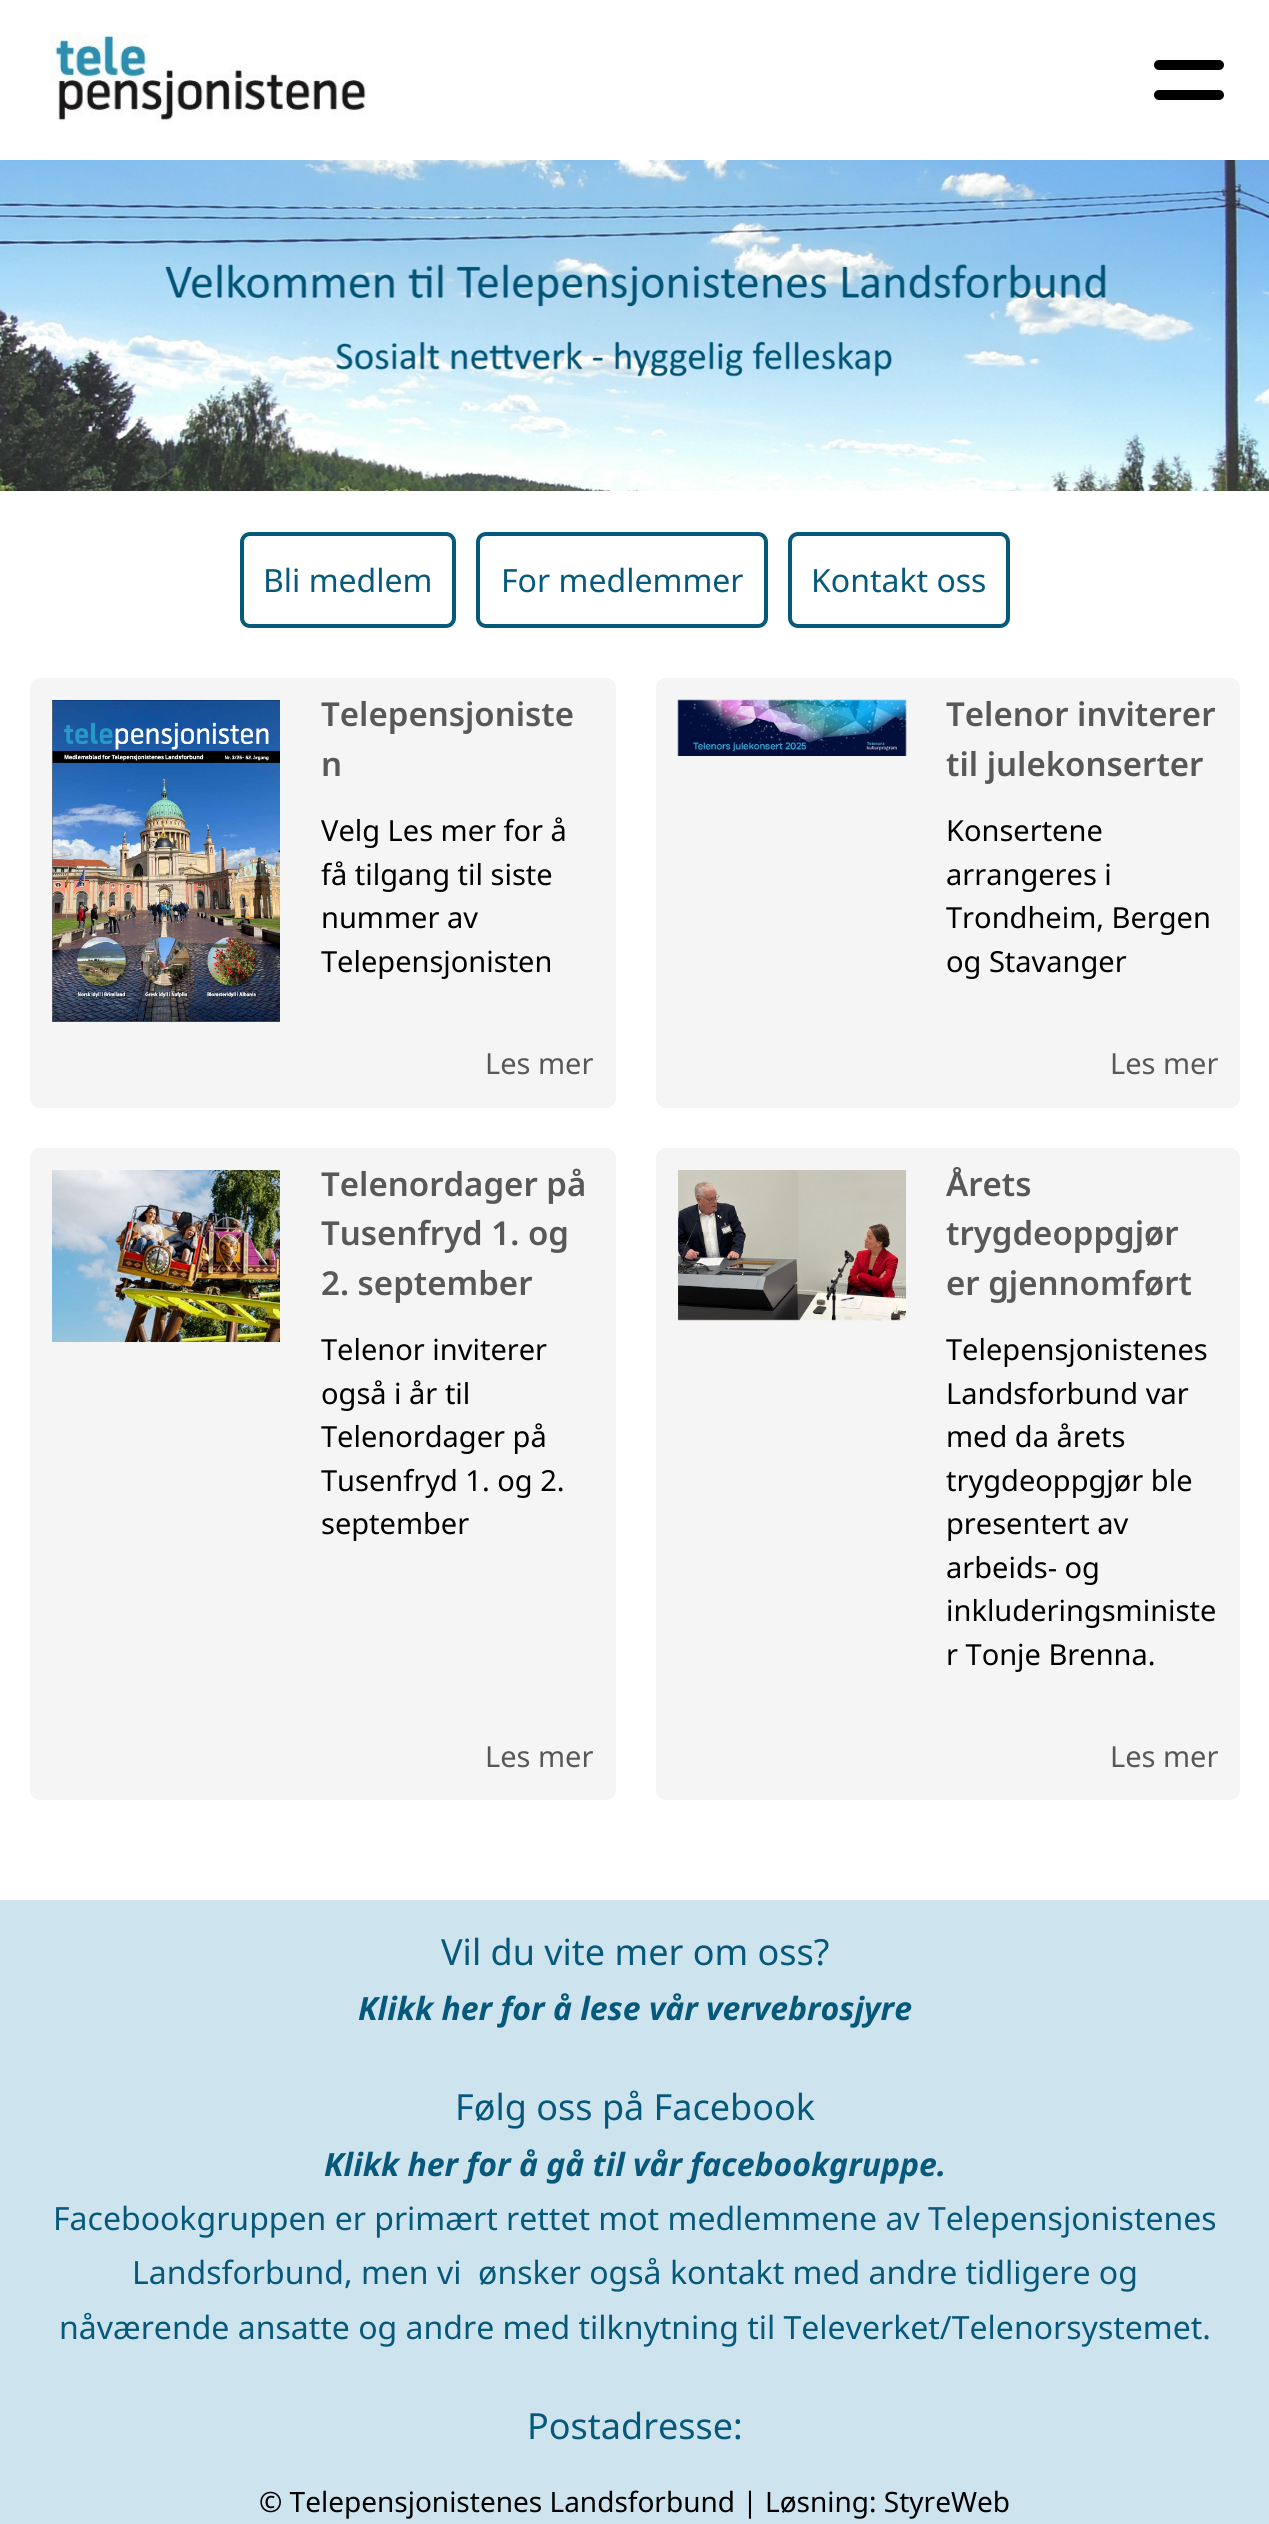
#include <cairo.h>
#include <math.h>
#include <stddef.h>

typedef struct { const char *family; double size; int italic, bold; unsigned color; } style_t;
static cairo_t *ctx;

static void ink(unsigned color) {
    cairo_set_source_rgb(ctx, (color >> 16) / 255.0, (color >> 8 & 255) / 255.0, (color & 255) / 255.0);
}

static void write(double x, double y, const char *s, const style_t *st) {
    cairo_select_font_face(ctx, st->family, st->italic ? CAIRO_FONT_SLANT_ITALIC : CAIRO_FONT_SLANT_NORMAL,
        st->bold ? CAIRO_FONT_WEIGHT_BOLD : CAIRO_FONT_WEIGHT_NORMAL);
    cairo_set_font_size(ctx, st->size);
    ink(st->color);
    cairo_move_to(ctx, x, y);
    cairo_show_text(ctx, s);
}

static void block(double x, double y, double w, double h, unsigned color) {
    ink(color);
    cairo_rectangle(ctx, x, y, w, h);
    cairo_fill(ctx);
}

static void round_path(double x, double y, double w, double h, double r) {
    cairo_new_sub_path(ctx);
    cairo_arc(ctx, x + w - r, y + h - r, r, 0, M_PI / 2);
    cairo_arc(ctx, x + r, y + h - r, r, M_PI / 2, M_PI);
    cairo_arc(ctx, x + r, y + r, r, M_PI, 1.5 * M_PI);
    cairo_arc(ctx, x + w - r, y + r, r, 1.5 * M_PI, 2 * M_PI);
    cairo_close_path(ctx);
}

static void paste(const char *path, double x, double y, double w, double h) {
    cairo_surface_t *image = cairo_image_surface_create_from_png(path);
    cairo_save(ctx);
    cairo_set_source_surface(ctx, image, x, y);
    cairo_rectangle(ctx, x, y, w, h);
    cairo_fill(ctx);
    cairo_restore(ctx);
    cairo_surface_destroy(image);
}

static const style_t s1 = {"Noto Sans", 32, 0, 0, 0x07597b};
static const style_t s2 = {"Noto Sans SemiBold", 33, 0, 0, 0x585858};
static const style_t s3 = {"Noto Sans", 29, 0, 0, 0x000000};
static const style_t s4 = {"Noto Sans", 29, 0, 0, 0x585858};
static const style_t s5 = {"Noto Sans", 36, 0, 0, 0x07597b};
static const style_t s6 = {"Noto Sans", 32, 1, 1, 0x07597b};
static const style_t s7 = {"Noto Sans", 28, 0, 0, 0x000000};

int main(void) {
    cairo_surface_t *surface = cairo_image_surface_create(CAIRO_FORMAT_RGB24, 1269, 2524);
    ctx = cairo_create(surface);
    cairo_font_options_t *options = cairo_font_options_create();
    cairo_font_options_set_hint_metrics(options, CAIRO_HINT_METRICS_OFF);
    cairo_font_options_set_hint_style(options, CAIRO_HINT_STYLE_NONE);
    cairo_set_font_options(ctx, options);
    cairo_set_miter_limit(ctx, 4);
    ink(0xffffff);
    cairo_paint(ctx);
    paste("pic1.png", 48, 32, 320, 91);
    ink(0x000000);
    round_path(1154, 60, 70, 10, 5);
    cairo_fill(ctx);
    round_path(1154, 90, 70, 10, 5);
    cairo_fill(ctx);
    paste("pic2.png", 0, 160, 1269, 331);
    round_path(242, 534, 212, 92, 8);
    ink(0x07597b);
    cairo_set_line_width(ctx, 4);
    cairo_stroke(ctx);
    write(263, 592, "Bli medlem", &s1);
    round_path(478, 534, 288, 92, 8);
    cairo_stroke(ctx);
    write(501, 592, "For medlemmer", &s1);
    round_path(790, 534, 218, 92, 8);
    cairo_stroke(ctx);
    write(811, 592, "Kontakt oss", &s1);
    ink(0xf5f5f5);
    round_path(30, 678, 586, 430, 10);
    cairo_fill(ctx);
    paste("pic3.png", 52, 700, 228, 322);
    write(321, 726, "Telepensjoniste", &s2);
    write(321, 776, "n", &s2);
    write(321, 841, "Velg Les mer for å", &s3);
    write(321, 885, "få tilgang til siste", &s3);
    write(321, 928, "nummer av", &s3);
    write(321, 972, "Telepensjonisten", &s3);
    write(485, 1074, "Les mer", &s4);
    ink(0xf5f5f5);
    round_path(656, 678, 584, 430, 10);
    cairo_fill(ctx);
    paste("pic4.png", 677, 699, 230, 57);
    write(946, 726, "Telenor inviterer", &s2);
    write(946, 776, "til julekonserter", &s2);
    write(946, 841, "Konsertene", &s3);
    write(946, 885, "arrangeres i", &s3);
    write(946, 928, "Trondheim, Bergen", &s3);
    write(946, 972, "og Stavanger", &s3);
    write(1110, 1074, "Les mer", &s4);
    ink(0xf5f5f5);
    round_path(30, 1148, 586, 652, 10);
    cairo_fill(ctx);
    paste("pic5.png", 52, 1170, 228, 172);
    write(321, 1196, "Telenordager på", &s2);
    write(321, 1245, "Tusenfryd 1. og", &s2);
    write(321, 1295, "2. september", &s2);
    write(321, 1360, "Telenor inviterer", &s3);
    write(321, 1404, "også i år til", &s3);
    write(321, 1447, "Telenordager på", &s3);
    write(321, 1491, "Tusenfryd 1. og 2.", &s3);
    write(321, 1534, "september", &s3);
    write(485, 1767, "Les mer", &s4);
    ink(0xf5f5f5);
    round_path(656, 1148, 584, 652, 10);
    cairo_fill(ctx);
    paste("pic6.png", 678, 1170, 229, 151);
    write(946, 1196, "Årets", &s2);
    write(946, 1245, "trygdeoppgjør", &s2);
    write(946, 1295, "er gjennomført", &s2);
    write(946, 1360, "Telepensjonistenes", &s3);
    write(946, 1404, "Landsforbund var", &s3);
    write(946, 1447, "med da årets", &s3);
    write(946, 1491, "trygdeoppgjør ble", &s3);
    write(946, 1534, "presentert av", &s3);
    write(946, 1578, "arbeids- og", &s3);
    write(946, 1621, "inkluderingsministe", &s3);
    write(946, 1665, "r Tonje Brenna.", &s3);
    write(1110, 1767, "Les mer", &s4);
    block(0, 1900, 1269, 624, 0xcde4ee);
    write(441, 1965, "Vil du vite mer om oss?", &s5);
    write(358, 2020, "Klikk her for å lese vår vervebrosjyre", &s6);
    write(455, 2120, "Følg oss på Facebook", &s5);
    write(324, 2176, "Klikk her for å gå til vår facebookgruppe.", &s6);
    write(53, 2230, "Facebookgruppen er primært rettet mot medlemmene av Telepensjonistenes", &s1);
    write(132, 2284, "Landsforbund, men vi  ønsker også kontakt med andre tidligere og", &s1);
    write(59, 2339, "nåværende ansatte og andre med tilknytning til Televerket/Telenorsystemet.", &s1);
    write(527, 2439, "Postadresse:", &s5);
    write(259, 2512, "© Telepensjonistenes Landsforbund | Løsning: StyreWeb", &s7);
    cairo_surface_write_to_png(surface, "screenshot.png");
    cairo_font_options_destroy(options);
    cairo_destroy(ctx);
    cairo_surface_destroy(surface);
    return 0;
}
